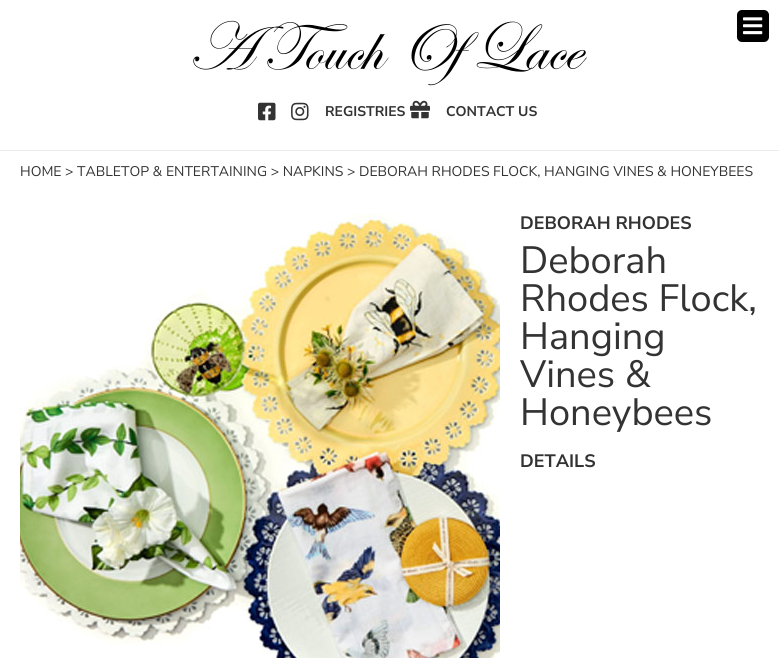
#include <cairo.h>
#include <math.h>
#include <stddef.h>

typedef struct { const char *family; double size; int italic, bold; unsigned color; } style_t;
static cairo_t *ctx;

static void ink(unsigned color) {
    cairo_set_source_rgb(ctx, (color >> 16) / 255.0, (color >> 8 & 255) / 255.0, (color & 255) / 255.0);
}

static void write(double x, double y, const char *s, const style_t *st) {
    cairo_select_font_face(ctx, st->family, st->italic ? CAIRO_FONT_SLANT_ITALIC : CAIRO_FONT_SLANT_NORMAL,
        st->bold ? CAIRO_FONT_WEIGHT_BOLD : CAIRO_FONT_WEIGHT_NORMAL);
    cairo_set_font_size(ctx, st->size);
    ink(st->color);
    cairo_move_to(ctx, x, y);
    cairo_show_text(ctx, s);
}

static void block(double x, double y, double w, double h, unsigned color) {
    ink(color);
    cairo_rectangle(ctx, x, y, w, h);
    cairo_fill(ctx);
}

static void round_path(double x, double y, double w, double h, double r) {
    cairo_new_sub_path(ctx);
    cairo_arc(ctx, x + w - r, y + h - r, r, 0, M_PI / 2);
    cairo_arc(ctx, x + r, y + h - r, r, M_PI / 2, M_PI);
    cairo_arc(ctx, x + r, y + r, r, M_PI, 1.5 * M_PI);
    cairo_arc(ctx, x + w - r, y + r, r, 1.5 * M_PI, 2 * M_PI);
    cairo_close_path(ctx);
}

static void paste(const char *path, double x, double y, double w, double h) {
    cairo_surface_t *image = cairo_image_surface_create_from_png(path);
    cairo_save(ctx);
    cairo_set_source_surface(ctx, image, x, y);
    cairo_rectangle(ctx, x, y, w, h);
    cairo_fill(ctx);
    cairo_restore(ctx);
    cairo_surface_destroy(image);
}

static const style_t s1 = {"Nunito Sans", 14, 0, 1, 0x333333};
static const style_t s2 = {"Nunito Sans", 14, 0, 0, 0x333333};
static const style_t s3 = {"Nunito Sans", 18, 0, 1, 0x333333};
static const style_t s4 = {"Nunito Sans", 38, 0, 0, 0x333333};

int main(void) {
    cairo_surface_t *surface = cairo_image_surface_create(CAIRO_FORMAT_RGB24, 779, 658);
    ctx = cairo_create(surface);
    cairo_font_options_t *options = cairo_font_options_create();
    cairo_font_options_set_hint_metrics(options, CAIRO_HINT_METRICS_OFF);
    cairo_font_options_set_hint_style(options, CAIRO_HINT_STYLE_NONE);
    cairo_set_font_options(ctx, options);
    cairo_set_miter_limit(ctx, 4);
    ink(0xffffff);
    cairo_paint(ctx);
    block(0, 150, 779, 1, 0xebebeb);
    paste("pic1.png", 193, 20, 394, 66);
    ink(0x000000);
    round_path(737, 10, 32, 32, 5);
    cairo_fill(ctx);
    paste("pic2.png", 743, 17, 20, 18);
    paste("pic3.png", 258, 102, 18, 19);
    paste("pic4.png", 291, 102, 18, 19);
    write(325, 116, "REGISTRIES", &s1);
    paste("pic5.png", 410, 100, 20, 19);
    write(446, 116, "CONTACT US", &s1);
    write(20, 176, "HOME > TABLETOP & ENTERTAINING > NAPKINS > DEBORAH RHODES FLOCK, HANGING VINES & HONEYBEES", &s2);
    paste("pic6.png", 20, 214, 480, 444);
    write(520, 229, "DEBORAH RHODES", &s3);
    write(520, 273, "Deborah", &s4);
    write(520, 311, "Rhodes Flock,", &s4);
    write(520, 349, "Hanging", &s4);
    write(520, 387, "Vines &", &s4);
    write(520, 425, "Honeybees", &s4);
    write(520, 467, "DETAILS", &s3);
    cairo_surface_write_to_png(surface, "screenshot.png");
    cairo_font_options_destroy(options);
    cairo_destroy(ctx);
    cairo_surface_destroy(surface);
    return 0;
}
